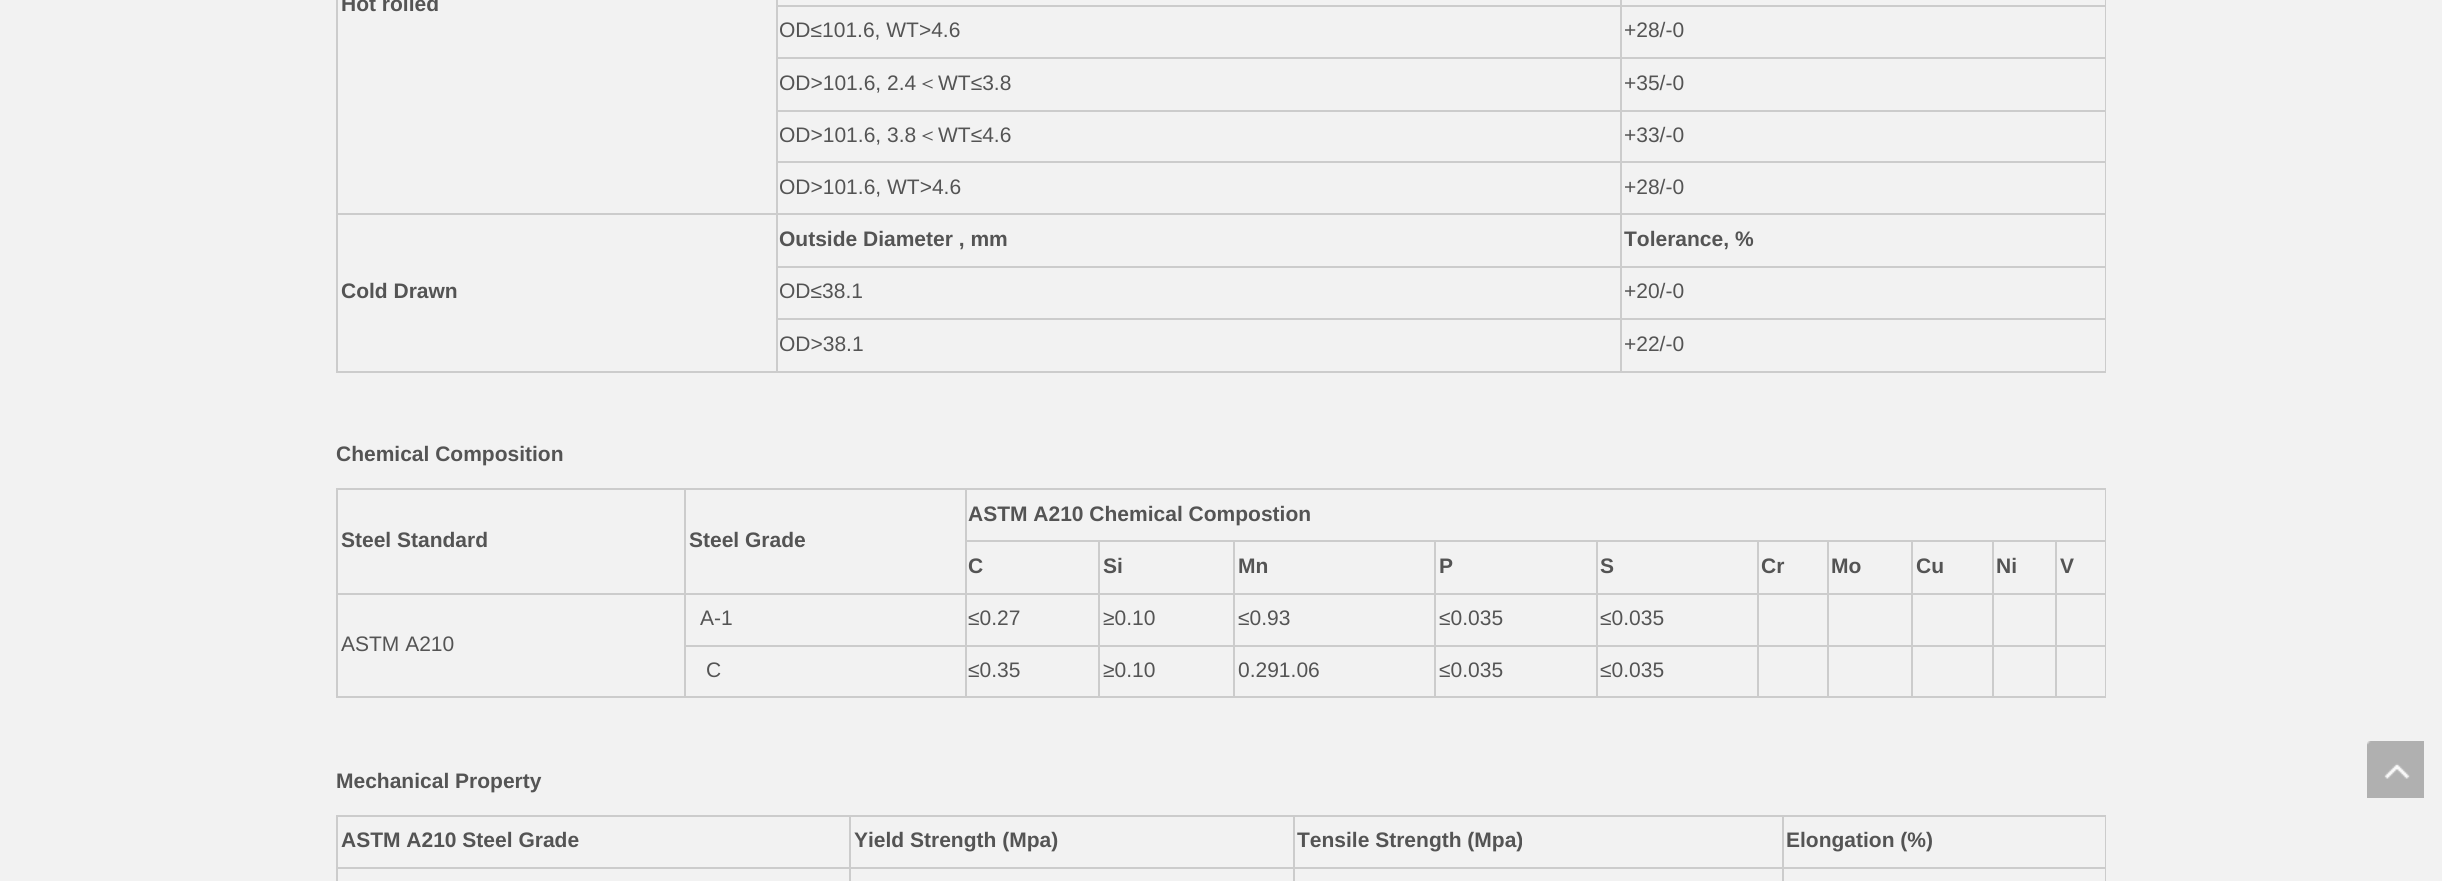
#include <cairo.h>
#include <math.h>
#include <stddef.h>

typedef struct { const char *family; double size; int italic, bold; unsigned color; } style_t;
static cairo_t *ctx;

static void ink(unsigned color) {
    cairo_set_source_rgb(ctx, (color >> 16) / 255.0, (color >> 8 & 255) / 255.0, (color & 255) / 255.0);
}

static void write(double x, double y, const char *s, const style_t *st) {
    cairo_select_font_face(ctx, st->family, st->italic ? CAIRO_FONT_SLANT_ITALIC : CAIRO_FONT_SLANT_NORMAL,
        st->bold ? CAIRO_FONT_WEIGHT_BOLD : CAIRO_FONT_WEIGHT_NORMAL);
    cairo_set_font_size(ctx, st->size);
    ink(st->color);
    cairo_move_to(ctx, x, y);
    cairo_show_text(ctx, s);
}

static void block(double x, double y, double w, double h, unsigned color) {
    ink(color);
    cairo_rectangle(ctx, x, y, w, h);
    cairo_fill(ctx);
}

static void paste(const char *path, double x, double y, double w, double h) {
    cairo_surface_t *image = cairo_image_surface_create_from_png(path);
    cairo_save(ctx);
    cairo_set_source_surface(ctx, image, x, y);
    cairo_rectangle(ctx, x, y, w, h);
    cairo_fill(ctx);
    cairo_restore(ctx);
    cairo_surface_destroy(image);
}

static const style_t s1 = {"Liberation Sans", 21, 0, 1, 0x545454};
static const style_t s2 = {"Liberation Sans", 21, 0, 0, 0x545454};
static const style_t s3 = {"WenQuanYi Zen Hei Medium", 21, 0, 0, 0x545454};

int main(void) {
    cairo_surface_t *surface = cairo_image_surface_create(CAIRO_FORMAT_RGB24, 2442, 881);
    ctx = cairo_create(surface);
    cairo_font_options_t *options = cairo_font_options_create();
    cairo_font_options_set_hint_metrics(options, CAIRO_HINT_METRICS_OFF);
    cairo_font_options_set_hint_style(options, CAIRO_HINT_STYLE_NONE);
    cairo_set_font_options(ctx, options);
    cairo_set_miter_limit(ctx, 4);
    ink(0xf2f2f2);
    cairo_paint(ctx);
    block(2105, 0, 1, 372, 0xcccccc);
    block(336, 371, 1770, 2, 0xcccccc);
    block(336, 0, 2, 372, 0xcccccc);
    write(341, 11, "Hot rolled", &s1);
    block(1620, 5, 486, 2, 0xcccccc);
    block(1620, 57, 486, 2, 0xcccccc);
    block(1620, 110, 486, 2, 0xcccccc);
    block(1620, 161, 486, 2, 0xcccccc);
    block(1620, 213, 486, 2, 0xcccccc);
    block(1620, 266, 486, 2, 0xcccccc);
    block(1620, 318, 486, 2, 0xcccccc);
    block(1620, 318, 2, 54, 0xcccccc);
    block(776, 318, 846, 2, 0xcccccc);
    block(1620, 266, 2, 54, 0xcccccc);
    block(776, 266, 846, 2, 0xcccccc);
    block(1620, 213, 2, 54, 0xcccccc);
    block(776, 213, 846, 2, 0xcccccc);
    block(1620, 161, 2, 54, 0xcccccc);
    block(776, 161, 846, 2, 0xcccccc);
    block(1620, 110, 2, 52, 0xcccccc);
    block(776, 110, 846, 2, 0xcccccc);
    block(1620, 57, 2, 54, 0xcccccc);
    block(776, 57, 846, 2, 0xcccccc);
    block(1620, 5, 2, 54, 0xcccccc);
    block(776, 5, 846, 2, 0xcccccc);
    block(1620, 0, 2, 6, 0xcccccc);
    block(776, 318, 2, 54, 0xcccccc);
    block(776, 266, 2, 54, 0xcccccc);
    block(776, 213, 2, 54, 0xcccccc);
    block(336, 213, 441, 2, 0xcccccc);
    block(776, 161, 2, 54, 0xcccccc);
    block(776, 110, 2, 52, 0xcccccc);
    block(776, 57, 2, 54, 0xcccccc);
    block(776, 0, 2, 59, 0xcccccc);
    write(779, 37, "OD≤101.6, WT>4.6", &s2);
    write(1624, 37, "+28/-0", &s2);
    write(779, 90, "OD>101.6, 2.4", &s2);
    write(917, 90, "＜", &s3);
    write(938, 90, "WT≤3.8", &s2);
    write(1624, 90, "+35/-0", &s2);
    write(779, 142, "OD>101.6, 3.8", &s2);
    write(917, 142, "＜", &s3);
    write(938, 142, "WT≤4.6", &s2);
    write(1624, 142, "+33/-0", &s2);
    write(779, 194, "OD>101.6, WT>4.6", &s2);
    write(1624, 194, "+28/-0", &s2);
    write(779, 246, "Outside Diameter , mm", &s1);
    write(1624, 246, "Tolerance, %", &s1);
    write(341, 298, "Cold Drawn", &s1);
    write(779, 298, "OD≤38.1", &s2);
    write(1624, 298, "+20/-0", &s2);
    write(779, 351, "OD>38.1", &s2);
    write(1624, 351, "+22/-0", &s2);
    write(336, 461, "Chemical Composition", &s1);
    block(336, 488, 1770, 2, 0xcccccc);
    block(2105, 488, 1, 210, 0xcccccc);
    block(336, 696, 1770, 2, 0xcccccc);
    block(336, 488, 2, 210, 0xcccccc);
    write(968, 521, "ASTM A210 Chemical Compostion", &s1);
    write(341, 547, "Steel Standard", &s1);
    block(2055, 593, 51, 2, 0xcccccc);
    block(2055, 645, 51, 2, 0xcccccc);
    block(2055, 645, 2, 53, 0xcccccc);
    block(1992, 645, 65, 2, 0xcccccc);
    block(2055, 593, 2, 54, 0xcccccc);
    block(1992, 593, 65, 2, 0xcccccc);
    block(1992, 645, 2, 53, 0xcccccc);
    block(1911, 645, 83, 2, 0xcccccc);
    block(1992, 593, 2, 54, 0xcccccc);
    block(1911, 593, 83, 2, 0xcccccc);
    block(1911, 645, 2, 53, 0xcccccc);
    block(1827, 645, 86, 2, 0xcccccc);
    block(1911, 593, 2, 54, 0xcccccc);
    block(1827, 593, 86, 2, 0xcccccc);
    block(1827, 645, 2, 53, 0xcccccc);
    block(1757, 645, 72, 2, 0xcccccc);
    block(1827, 593, 2, 54, 0xcccccc);
    block(1757, 593, 72, 2, 0xcccccc);
    block(1757, 645, 2, 53, 0xcccccc);
    block(1596, 645, 162, 2, 0xcccccc);
    block(1757, 593, 2, 54, 0xcccccc);
    block(1596, 593, 162, 2, 0xcccccc);
    block(1596, 645, 2, 53, 0xcccccc);
    block(1434, 645, 164, 2, 0xcccccc);
    block(1596, 593, 2, 54, 0xcccccc);
    block(1434, 593, 164, 2, 0xcccccc);
    block(1434, 645, 2, 53, 0xcccccc);
    block(1233, 645, 203, 2, 0xcccccc);
    block(1434, 593, 2, 54, 0xcccccc);
    block(1233, 593, 203, 2, 0xcccccc);
    block(1233, 645, 2, 53, 0xcccccc);
    block(1098, 645, 137, 2, 0xcccccc);
    block(1233, 593, 2, 54, 0xcccccc);
    block(1098, 593, 137, 2, 0xcccccc);
    block(1098, 645, 2, 53, 0xcccccc);
    block(965, 645, 135, 2, 0xcccccc);
    block(1098, 593, 2, 54, 0xcccccc);
    block(965, 593, 135, 2, 0xcccccc);
    block(965, 645, 2, 53, 0xcccccc);
    block(684, 645, 282, 2, 0xcccccc);
    block(965, 593, 2, 54, 0xcccccc);
    block(684, 593, 282, 2, 0xcccccc);
    block(684, 645, 2, 53, 0xcccccc);
    block(684, 593, 2, 54, 0xcccccc);
    block(336, 593, 350, 2, 0xcccccc);
    block(684, 488, 2, 106, 0xcccccc);
    write(689, 547, "Steel Grade", &s1);
    block(2055, 540, 51, 2, 0xcccccc);
    block(2055, 540, 2, 54, 0xcccccc);
    block(1992, 540, 65, 2, 0xcccccc);
    block(1992, 540, 2, 54, 0xcccccc);
    block(1911, 540, 83, 2, 0xcccccc);
    block(1911, 540, 2, 54, 0xcccccc);
    block(1827, 540, 86, 2, 0xcccccc);
    block(1827, 540, 2, 54, 0xcccccc);
    block(1757, 540, 72, 2, 0xcccccc);
    block(1757, 540, 2, 54, 0xcccccc);
    block(1596, 540, 162, 2, 0xcccccc);
    block(1596, 540, 2, 54, 0xcccccc);
    block(1434, 540, 164, 2, 0xcccccc);
    block(1434, 540, 2, 54, 0xcccccc);
    block(1233, 540, 203, 2, 0xcccccc);
    block(1233, 540, 2, 54, 0xcccccc);
    block(1098, 540, 137, 2, 0xcccccc);
    block(1098, 540, 2, 54, 0xcccccc);
    block(965, 540, 135, 2, 0xcccccc);
    block(965, 488, 2, 106, 0xcccccc);
    write(968, 573, "C", &s1);
    write(1103, 573, "Si", &s1);
    write(1238, 573, "Mn", &s1);
    write(1439, 573, "P", &s1);
    write(1600, 573, "S", &s1);
    write(1761, 573, "Cr", &s1);
    write(1831, 573, "Mo", &s1);
    write(1916, 573, "Cu", &s1);
    write(1996, 573, "Ni", &s1);
    write(2060, 573, "V", &s1);
    write(700, 625, "A-1", &s2);
    write(968, 625, "≤0.27", &s2);
    write(1103, 625, "≥0.10", &s2);
    write(1238, 625, "≤0.93", &s2);
    write(1439, 625, "≤0.035", &s2);
    write(1600, 625, "≤0.035", &s2);
    write(341, 651, "ASTM A210", &s2);
    write(706, 677, "C", &s2);
    write(968, 677, "≤0.35", &s2);
    write(1103, 677, "≥0.10", &s2);
    write(1238, 677, "0.291.06", &s2);
    write(1439, 677, "≤0.035", &s2);
    write(1600, 677, "≤0.035", &s2);
    write(336, 788, "Mechanical Property", &s1);
    block(336, 815, 1770, 2, 0xcccccc);
    block(2105, 815, 1, 66, 0xcccccc);
    block(336, 815, 2, 66, 0xcccccc);
    write(341, 847, "ASTM A210 Steel Grade", &s1);
    block(1782, 867, 324, 2, 0xcccccc);
    block(1782, 867, 2, 14, 0xcccccc);
    block(1293, 867, 491, 2, 0xcccccc);
    block(1293, 867, 2, 14, 0xcccccc);
    block(849, 867, 446, 2, 0xcccccc);
    block(849, 867, 2, 14, 0xcccccc);
    block(336, 867, 515, 2, 0xcccccc);
    block(849, 815, 2, 54, 0xcccccc);
    write(854, 847, "Yield Strength (Mpa)", &s1);
    block(1293, 815, 2, 54, 0xcccccc);
    write(1297, 847, "Tensile Strength (Mpa)", &s1);
    block(1782, 815, 2, 54, 0xcccccc);
    write(1786, 847, "Elongation (%)", &s1);
    paste("pic1.png", 2367, 741, 57, 57);
    cairo_surface_write_to_png(surface, "screenshot.png");
    cairo_font_options_destroy(options);
    cairo_destroy(ctx);
    cairo_surface_destroy(surface);
    return 0;
}
